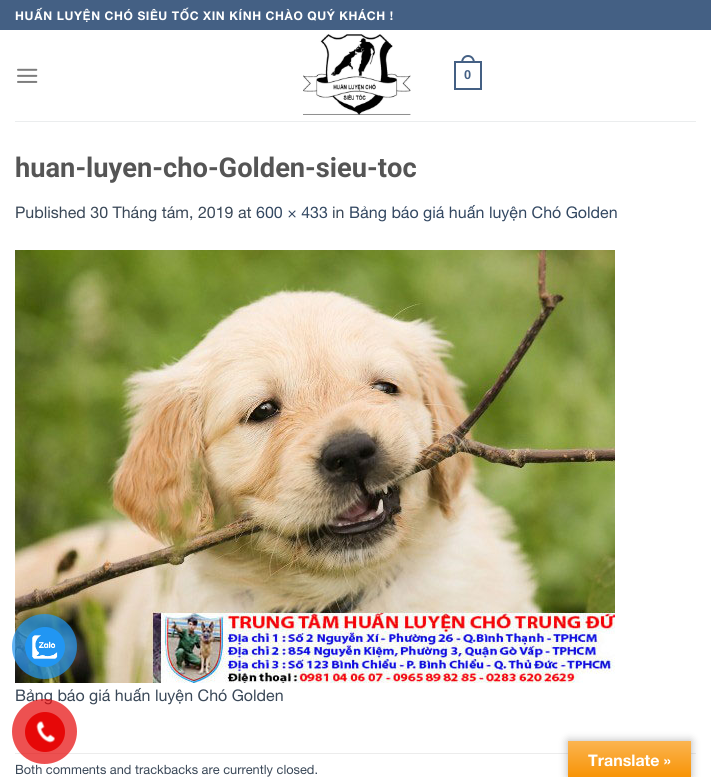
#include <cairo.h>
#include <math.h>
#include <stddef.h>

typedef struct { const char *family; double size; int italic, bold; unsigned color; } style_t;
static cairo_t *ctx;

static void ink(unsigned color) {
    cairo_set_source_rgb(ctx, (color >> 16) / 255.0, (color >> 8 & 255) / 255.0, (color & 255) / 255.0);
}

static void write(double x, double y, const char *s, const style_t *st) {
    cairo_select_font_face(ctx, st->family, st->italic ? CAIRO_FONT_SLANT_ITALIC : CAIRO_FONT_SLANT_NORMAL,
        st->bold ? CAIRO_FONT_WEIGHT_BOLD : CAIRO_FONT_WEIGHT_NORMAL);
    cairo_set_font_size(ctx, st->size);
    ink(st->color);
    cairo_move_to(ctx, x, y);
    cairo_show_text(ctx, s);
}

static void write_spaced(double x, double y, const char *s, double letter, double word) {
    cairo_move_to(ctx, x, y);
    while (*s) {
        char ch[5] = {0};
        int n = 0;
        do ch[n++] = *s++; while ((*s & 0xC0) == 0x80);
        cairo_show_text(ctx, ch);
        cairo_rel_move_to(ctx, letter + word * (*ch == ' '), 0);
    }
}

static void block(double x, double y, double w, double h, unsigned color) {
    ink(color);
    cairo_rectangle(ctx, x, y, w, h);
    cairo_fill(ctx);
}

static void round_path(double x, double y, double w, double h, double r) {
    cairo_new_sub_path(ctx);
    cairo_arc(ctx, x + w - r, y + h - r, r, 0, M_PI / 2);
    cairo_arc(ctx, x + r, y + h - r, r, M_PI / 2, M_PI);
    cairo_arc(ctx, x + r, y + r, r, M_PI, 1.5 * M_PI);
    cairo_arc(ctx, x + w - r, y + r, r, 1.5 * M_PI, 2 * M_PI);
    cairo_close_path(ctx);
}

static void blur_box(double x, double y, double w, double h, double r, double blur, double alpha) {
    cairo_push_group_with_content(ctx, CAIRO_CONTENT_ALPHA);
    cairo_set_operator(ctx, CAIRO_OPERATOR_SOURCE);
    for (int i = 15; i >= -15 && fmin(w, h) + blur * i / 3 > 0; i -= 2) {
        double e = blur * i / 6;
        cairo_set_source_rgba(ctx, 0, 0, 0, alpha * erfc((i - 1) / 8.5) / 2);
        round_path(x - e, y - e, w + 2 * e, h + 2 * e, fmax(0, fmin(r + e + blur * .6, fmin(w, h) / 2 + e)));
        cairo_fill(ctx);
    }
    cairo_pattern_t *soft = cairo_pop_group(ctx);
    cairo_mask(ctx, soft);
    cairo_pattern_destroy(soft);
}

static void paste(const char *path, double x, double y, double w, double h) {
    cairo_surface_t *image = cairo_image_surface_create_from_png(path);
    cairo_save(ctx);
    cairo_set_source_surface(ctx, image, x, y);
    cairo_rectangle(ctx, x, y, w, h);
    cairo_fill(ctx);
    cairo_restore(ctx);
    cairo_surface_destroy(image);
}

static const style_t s1 = {"Liberation Sans", 12.8, 0, 1, 0x446084};
static const style_t s2 = {"Roboto", 27.25, 0, 1, 0x555555};
static const style_t s3 = {"Helvetica Neue", 16, 0, 0, 0x3a4858};
static const style_t s4 = {"Helvetica Neue", 16, 0, 0, 0x334862};
static const style_t s5 = {"Helvetica Neue", 12.8, 0, 0, 0x3a4858};
static const style_t s6 = {"Helvetica Neue", 16, 0, 1, 0xffffff};

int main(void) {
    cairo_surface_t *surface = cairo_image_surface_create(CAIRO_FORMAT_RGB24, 711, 777);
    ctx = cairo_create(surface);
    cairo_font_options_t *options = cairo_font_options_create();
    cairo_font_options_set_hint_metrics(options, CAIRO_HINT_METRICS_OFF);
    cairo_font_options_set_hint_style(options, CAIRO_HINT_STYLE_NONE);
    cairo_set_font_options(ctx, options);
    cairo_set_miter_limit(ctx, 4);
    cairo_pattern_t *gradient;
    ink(0xffffff);
    cairo_paint(ctx);
    block(0, 0, 711, 30, 0x446084);
    cairo_select_font_face(ctx, "Helvetica Neue", CAIRO_FONT_SLANT_NORMAL, CAIRO_FONT_WEIGHT_BOLD);
    cairo_set_font_size(ctx, 12);
    ink(0xffffff);
    write_spaced(15, 20, "HUẤN LUYỆN CHÓ SIÊU TỐC XIN KÍNH CHÀO QUÝ KHÁCH !", 0.6, 0);
    paste("pic1.png", 17, 68, 21, 15);
    paste("pic2.png", 303, 34, 108, 81);
    cairo_rectangle(ctx, 455, 62, 26, 27);
    ink(0x446084);
    cairo_stroke(ctx);
    cairo_set_fill_rule(ctx, CAIRO_FILL_RULE_EVEN_ODD);
    cairo_new_path(ctx);
    cairo_move_to(ctx, 468, 55);
    cairo_curve_to(ctx, 472.5, 55, 475, 59, 475, 63);
    cairo_line_to(ctx, 461, 63);
    cairo_curve_to(ctx, 461, 59, 463.5, 55, 468, 55);
    cairo_close_path(ctx);
    cairo_move_to(ctx, 468, 57);
    cairo_curve_to(ctx, 471.5, 57, 473, 60, 473, 63);
    cairo_line_to(ctx, 463, 63);
    cairo_curve_to(ctx, 463, 60, 464.5, 57, 468, 57);
    cairo_close_path(ctx);
    cairo_fill(ctx);
    write(464, 79, "0", &s1);
    block(15, 121, 681, 1, 0xebedee);
    write(15, 177, "huan-luyen-cho-Golden-sieu-toc", &s2);
    write(15, 218, "Published 30 Tháng tám, 2019 at", &s3);
    write(256, 218, "600 × 433", &s4);
    write(332, 218, "in", &s3);
    write(349, 218, "Bảng báo giá huấn luyện Chó Golden", &s4);
    paste("pic3.png", 15, 250, 600, 433);
    write(15, 701, "Bảng báo giá huấn luyện Chó Golden", &s3);
    block(15, 753, 681, 1, 0xececec);
    write(15, 774, "Both comments and trackbacks are currently closed.", &s5);
    cairo_set_source_rgba(ctx, 0.129, 0.588, 0.953, 0.7);
    cairo_new_path(ctx);
    cairo_arc(ctx, 44.5, 646.5, 32.5, 0, 2 * M_PI);
    cairo_fill(ctx);
    ink(0x2196f3);
    cairo_arc(ctx, 45, 647, 20, 0, 2 * M_PI);
    cairo_fill(ctx);
    paste("pic4.png", 32, 635, 26, 24);
    cairo_set_source_rgba(ctx, 0.902, 0.031, 0.031, 0.7);
    cairo_arc(ctx, 44.5, 731.5, 32.5, 0, 2 * M_PI);
    cairo_fill(ctx);
    ink(0xe60808);
    cairo_arc(ctx, 45, 732, 20, 0, 2 * M_PI);
    cairo_fill(ctx);
    paste("pic5.png", 36, 721, 19, 22);
    ink(0x000000);
    blur_box(568, 741, 123, 36, 0, 4.5, 0.3);
    gradient = cairo_pattern_create_linear(630, 741, 630, 777);
    cairo_pattern_add_color_stop_rgba(gradient, 0, 0.984, 0.706, 0.314, 1);
    cairo_pattern_add_color_stop_rgba(gradient, 1, 0.973, 0.58, 0.024, 1);
    cairo_set_source(ctx, gradient);
    cairo_pattern_destroy(gradient);
    cairo_rectangle(ctx, 568, 741, 123, 36);
    cairo_fill(ctx);
    write(588, 766, "Translate »", &s6);
    cairo_surface_write_to_png(surface, "screenshot.png");
    cairo_font_options_destroy(options);
    cairo_destroy(ctx);
    cairo_surface_destroy(surface);
    return 0;
}
